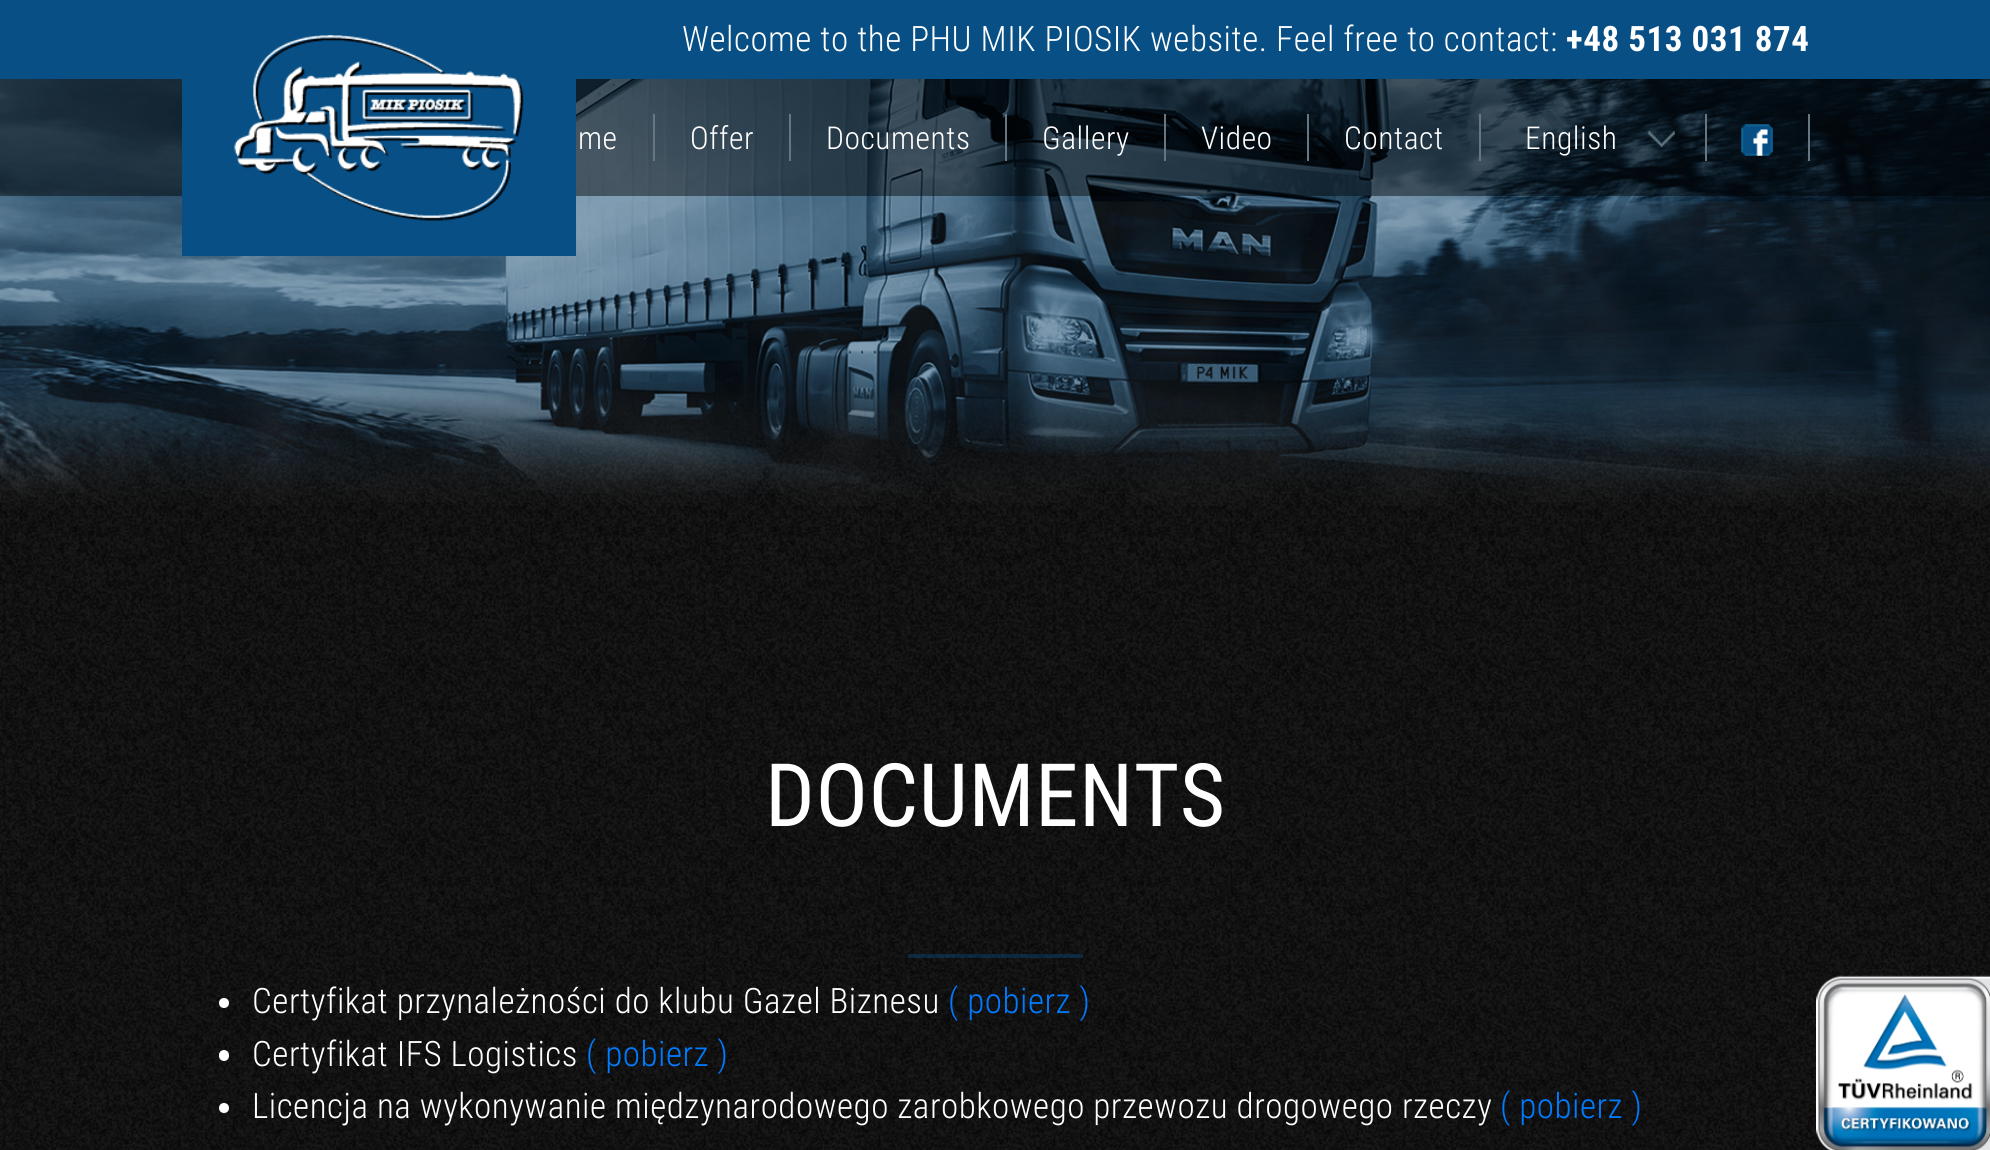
#include <cairo.h>
#include <math.h>
#include <stddef.h>

static cairo_t *ctx;

static void ink(unsigned color) {
    cairo_set_source_rgb(ctx, (color >> 16) / 255.0, (color >> 8 & 255) / 255.0, (color & 255) / 255.0);
}

static void write_spaced(double x, double y, const char *s, double letter, double word) {
    cairo_move_to(ctx, x, y);
    while (*s) {
        char ch[5] = {0};
        int n = 0;
        do ch[n++] = *s++; while ((*s & 0xC0) == 0x80);
        cairo_show_text(ctx, ch);
        cairo_rel_move_to(ctx, letter + word * (*ch == ' '), 0);
    }
}

static void block(double x, double y, double w, double h, unsigned color) {
    ink(color);
    cairo_rectangle(ctx, x, y, w, h);
    cairo_fill(ctx);
}

static void round_path(double x, double y, double w, double h, double r) {
    cairo_new_sub_path(ctx);
    cairo_arc(ctx, x + w - r, y + h - r, r, 0, M_PI / 2);
    cairo_arc(ctx, x + r, y + h - r, r, M_PI / 2, M_PI);
    cairo_arc(ctx, x + r, y + r, r, M_PI, 1.5 * M_PI);
    cairo_arc(ctx, x + w - r, y + r, r, 1.5 * M_PI, 2 * M_PI);
    cairo_close_path(ctx);
}

static void paste(const char *path, double x, double y, double w, double h) {
    cairo_surface_t *image = cairo_image_surface_create_from_png(path);
    cairo_save(ctx);
    cairo_set_source_surface(ctx, image, x, y);
    cairo_rectangle(ctx, x, y, w, h);
    cairo_fill(ctx);
    cairo_restore(ctx);
    cairo_surface_destroy(image);
}

int main(void) {
    cairo_surface_t *surface = cairo_image_surface_create(CAIRO_FORMAT_RGB24, 1990, 1150);
    ctx = cairo_create(surface);
    cairo_font_options_t *options = cairo_font_options_create();
    cairo_font_options_set_hint_metrics(options, CAIRO_HINT_METRICS_OFF);
    cairo_font_options_set_hint_style(options, CAIRO_HINT_STYLE_NONE);
    cairo_set_font_options(ctx, options);
    cairo_set_miter_limit(ctx, 4);
    ink(0xffffff);
    cairo_paint(ctx);
    paste("pic1.png", 0, 372, 1990, 778);
    block(0, 0, 1990, 79, 0x084f85);
    paste("pic3.png", 0, 79, 1990, 414);
    paste("pic4.png", 0, 201, 1990, 305);
    paste("pic5.png", 0, 201, 1990, 301);
    cairo_set_source_rgba(ctx, 0, 0, 0, 0.45);
    cairo_rectangle(ctx, 0, 79, 1990, 117);
    cairo_fill(ctx);
    block(182, 79, 394, 177, 0x084f85);
    paste("pic2.png", 234, 35, 290, 186);
    cairo_select_font_face(ctx, "Roboto Condensed Light", CAIRO_FONT_SLANT_NORMAL, CAIRO_FONT_WEIGHT_NORMAL);
    cairo_set_font_size(ctx, 35);
    ink(0xffffff);
    write_spaced(682, 51, "Welcome to the PHU MIK PIOSIK website. Feel free to contact:", 0.53, 0);
    cairo_select_font_face(ctx, "Roboto Condensed", CAIRO_FONT_SLANT_NORMAL, CAIRO_FONT_WEIGHT_BOLD);
    write_spaced(1566, 51, "+48 513 031 874", 0.53, 0);
    block(653, 114, 2, 47, 0x667781);
    cairo_select_font_face(ctx, "Roboto Condensed Light", CAIRO_FONT_SLANT_NORMAL, CAIRO_FONT_WEIGHT_NORMAL);
    cairo_set_font_size(ctx, 31.5);
    ink(0xffffff);
    write_spaced(578, 149, "me", 0.53, 0);
    block(789, 114, 2, 47, 0x667781);
    ink(0xffffff);
    write_spaced(690, 149, "Offer", 0.53, 0);
    block(1005, 114, 2, 47, 0x667781);
    ink(0xffffff);
    write_spaced(826, 149, "Documents", 0.53, 0);
    block(1164, 114, 2, 47, 0x667781);
    ink(0xffffff);
    write_spaced(1042, 149, "Gallery", 0.53, 0);
    block(1307, 114, 2, 47, 0x667781);
    ink(0xffffff);
    write_spaced(1201, 149, "Video", 0.53, 0);
    block(1479, 114, 2, 47, 0x667781);
    ink(0xffffff);
    write_spaced(1344, 149, "Contact", 0.53, 0);
    block(1705, 114, 2, 47, 0x667781);
    paste("pic6.png", 1648, 131, 27, 16);
    ink(0xffffff);
    write_spaced(1525, 149, "English", 0.53, 0);
    block(1808, 114, 2, 47, 0x667781);
    paste("pic7.png", 1741, 124, 32, 32);
    cairo_select_font_face(ctx, "Roboto Condensed", CAIRO_FONT_SLANT_NORMAL, CAIRO_FONT_WEIGHT_NORMAL);
    cairo_set_font_size(ctx, 87.5);
    ink(0xffffff);
    write_spaced(765, 826, "DOCUMENTS", 0.53, 0);
    cairo_set_source_rgba(ctx, 0.031, 0.31, 0.522, 0.4);
    cairo_rectangle(ctx, 908, 954, 175, 4);
    cairo_fill(ctx);
    ink(0xffffff);
    cairo_arc(ctx, 224, 1003, 5, 0, 2 * M_PI);
    cairo_fill(ctx);
    cairo_select_font_face(ctx, "Roboto Condensed Light", CAIRO_FONT_SLANT_NORMAL, CAIRO_FONT_WEIGHT_NORMAL);
    cairo_set_font_size(ctx, 35);
    write_spaced(252, 1013, "Certyfikat przynależności do klubu Gazel Biznesu", 0.53, 0);
    ink(0x007bff);
    write_spaced(948, 1013, "( pobierz )", 0.53, 0);
    ink(0xffffff);
    round_path(219, 1050, 10, 11, 5);
    cairo_fill(ctx);
    write_spaced(252, 1066, "Certyfikat IFS Logistics", 0.53, 0);
    ink(0x007bff);
    write_spaced(586, 1066, "( pobierz )", 0.53, 0);
    ink(0xffffff);
    cairo_new_path(ctx);
    cairo_arc(ctx, 224, 1108, 5, 0, 2 * M_PI);
    cairo_fill(ctx);
    write_spaced(252, 1118, "Licencja na wykonywanie międzynarodowego zarobkowego przewozu drogowego rzeczy", 0.53, 0);
    ink(0x007bff);
    write_spaced(1500, 1118, "( pobierz )", 0.53, 0);
    paste("pic8.png", 1816, 975, 174, 175);
    cairo_surface_write_to_png(surface, "screenshot.png");
    cairo_font_options_destroy(options);
    cairo_destroy(ctx);
    cairo_surface_destroy(surface);
    return 0;
}
